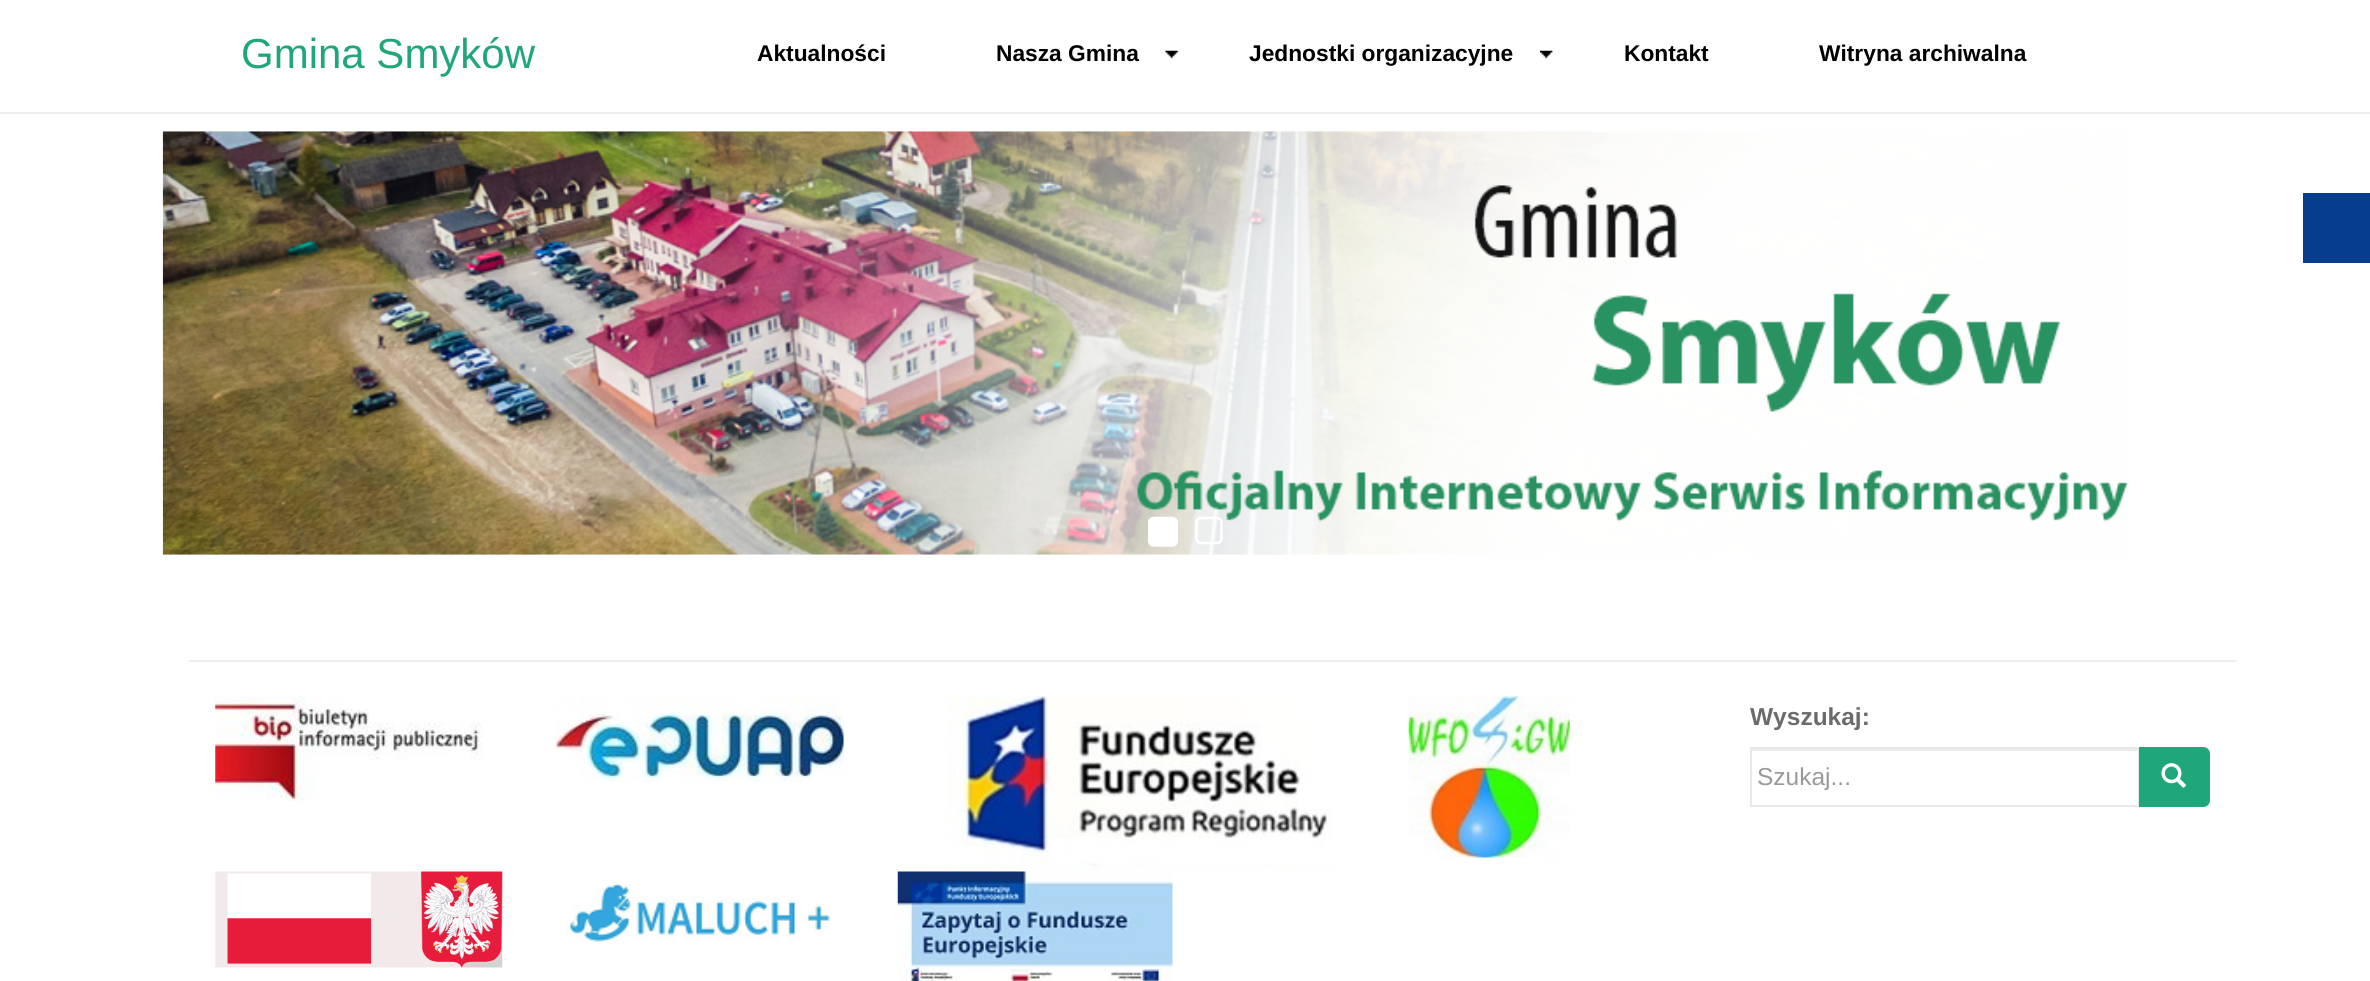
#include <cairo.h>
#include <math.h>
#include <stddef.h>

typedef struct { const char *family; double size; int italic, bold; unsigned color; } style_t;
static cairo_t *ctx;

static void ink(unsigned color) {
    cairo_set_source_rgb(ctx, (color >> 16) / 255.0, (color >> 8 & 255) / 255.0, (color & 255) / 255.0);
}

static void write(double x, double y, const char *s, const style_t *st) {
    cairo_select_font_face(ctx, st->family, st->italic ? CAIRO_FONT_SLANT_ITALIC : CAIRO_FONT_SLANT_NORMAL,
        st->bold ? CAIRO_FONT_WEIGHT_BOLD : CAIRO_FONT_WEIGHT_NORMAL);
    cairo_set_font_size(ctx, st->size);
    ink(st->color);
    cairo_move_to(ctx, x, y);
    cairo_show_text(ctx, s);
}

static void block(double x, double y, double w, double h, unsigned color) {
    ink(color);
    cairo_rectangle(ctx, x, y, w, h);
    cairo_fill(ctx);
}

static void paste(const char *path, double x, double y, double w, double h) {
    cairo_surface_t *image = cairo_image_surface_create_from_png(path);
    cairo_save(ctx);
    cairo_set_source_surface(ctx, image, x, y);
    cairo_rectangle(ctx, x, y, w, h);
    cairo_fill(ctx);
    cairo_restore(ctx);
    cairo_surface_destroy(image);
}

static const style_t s1 = {"Liberation Sans", 42, 0, 0, 0x1fa67a};
static const style_t s2 = {"Liberation Sans", 22.75, 0, 1, 0x000000};
static const style_t s3 = {"Liberation Sans", 24.5, 0, 1, 0x6b6b6b};
static const style_t s4 = {"Liberation Sans", 24.5, 0, 0, 0x999999};

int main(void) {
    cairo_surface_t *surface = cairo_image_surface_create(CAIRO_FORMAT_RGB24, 2370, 981);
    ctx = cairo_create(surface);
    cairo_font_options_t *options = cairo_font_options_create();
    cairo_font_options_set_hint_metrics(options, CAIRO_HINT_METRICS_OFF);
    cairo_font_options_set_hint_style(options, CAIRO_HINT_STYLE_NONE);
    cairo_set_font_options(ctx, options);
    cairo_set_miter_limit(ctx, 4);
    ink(0xffffff);
    cairo_paint(ctx);
    block(0, 112, 2370, 2, 0xeeeeee);
    write(241, 68, "Gmina Smyków", &s1);
    write(757, 61, "Aktualności", &s2);
    write(996, 61, "Nasza Gmina", &s2);
    paste("pic1.png", 1165, 50, 14, 9);
    write(1249, 61, "Jednostki organizacyjne", &s2);
    paste("pic2.png", 1540, 50, 13, 9);
    write(1624, 61, "Kontakt", &s2);
    write(1819, 61, "Witryna archiwalna", &s2);
    block(2303, 193, 67, 70, 0x063d8d);
    paste("pic3.png", 162, 131, 1967, 424);
    paste("pic4.png", 1148, 516, 30, 31);
    paste("pic5.png", 1195, 516, 28, 29);
    block(189, 660, 2048, 2, 0xeeeeee);
    paste("pic6.png", 215, 696, 268, 106);
    paste("pic7.png", 556, 696, 288, 86);
    paste("pic8.png", 948, 696, 383, 175);
    paste("pic9.png", 1408, 696, 162, 162);
    write(1750, 725, "Wyszukaj:", &s3);
    block(1752, 749, 387, 2, 0xececec);
    cairo_rectangle(ctx, 1751, 748, 388, 58);
    ink(0xe8e8e8);
    cairo_stroke(ctx);
    write(1757, 785, "Szukaj...", &s4);
    ink(0x1fa67a);
    cairo_new_path(ctx);
    cairo_move_to(ctx, 2140, 748);
    cairo_line_to(ctx, 2203, 748);
    cairo_curve_to(ctx, 2206.5, 748, 2209, 750.5, 2209, 754);
    cairo_line_to(ctx, 2209, 800);
    cairo_curve_to(ctx, 2209, 803.5, 2206.5, 806, 2203, 806);
    cairo_line_to(ctx, 2140, 806);
    cairo_close_path(ctx);
    cairo_fill_preserve(ctx);
    cairo_stroke(ctx);
    paste("pic10.png", 2161, 763, 25, 25);
    paste("pic11.png", 215, 871, 288, 97);
    paste("pic12.png", 566, 880, 265, 62);
    paste("pic13.png", 897, 871, 276, 110);
    cairo_surface_write_to_png(surface, "screenshot.png");
    cairo_font_options_destroy(options);
    cairo_destroy(ctx);
    cairo_surface_destroy(surface);
    return 0;
}
